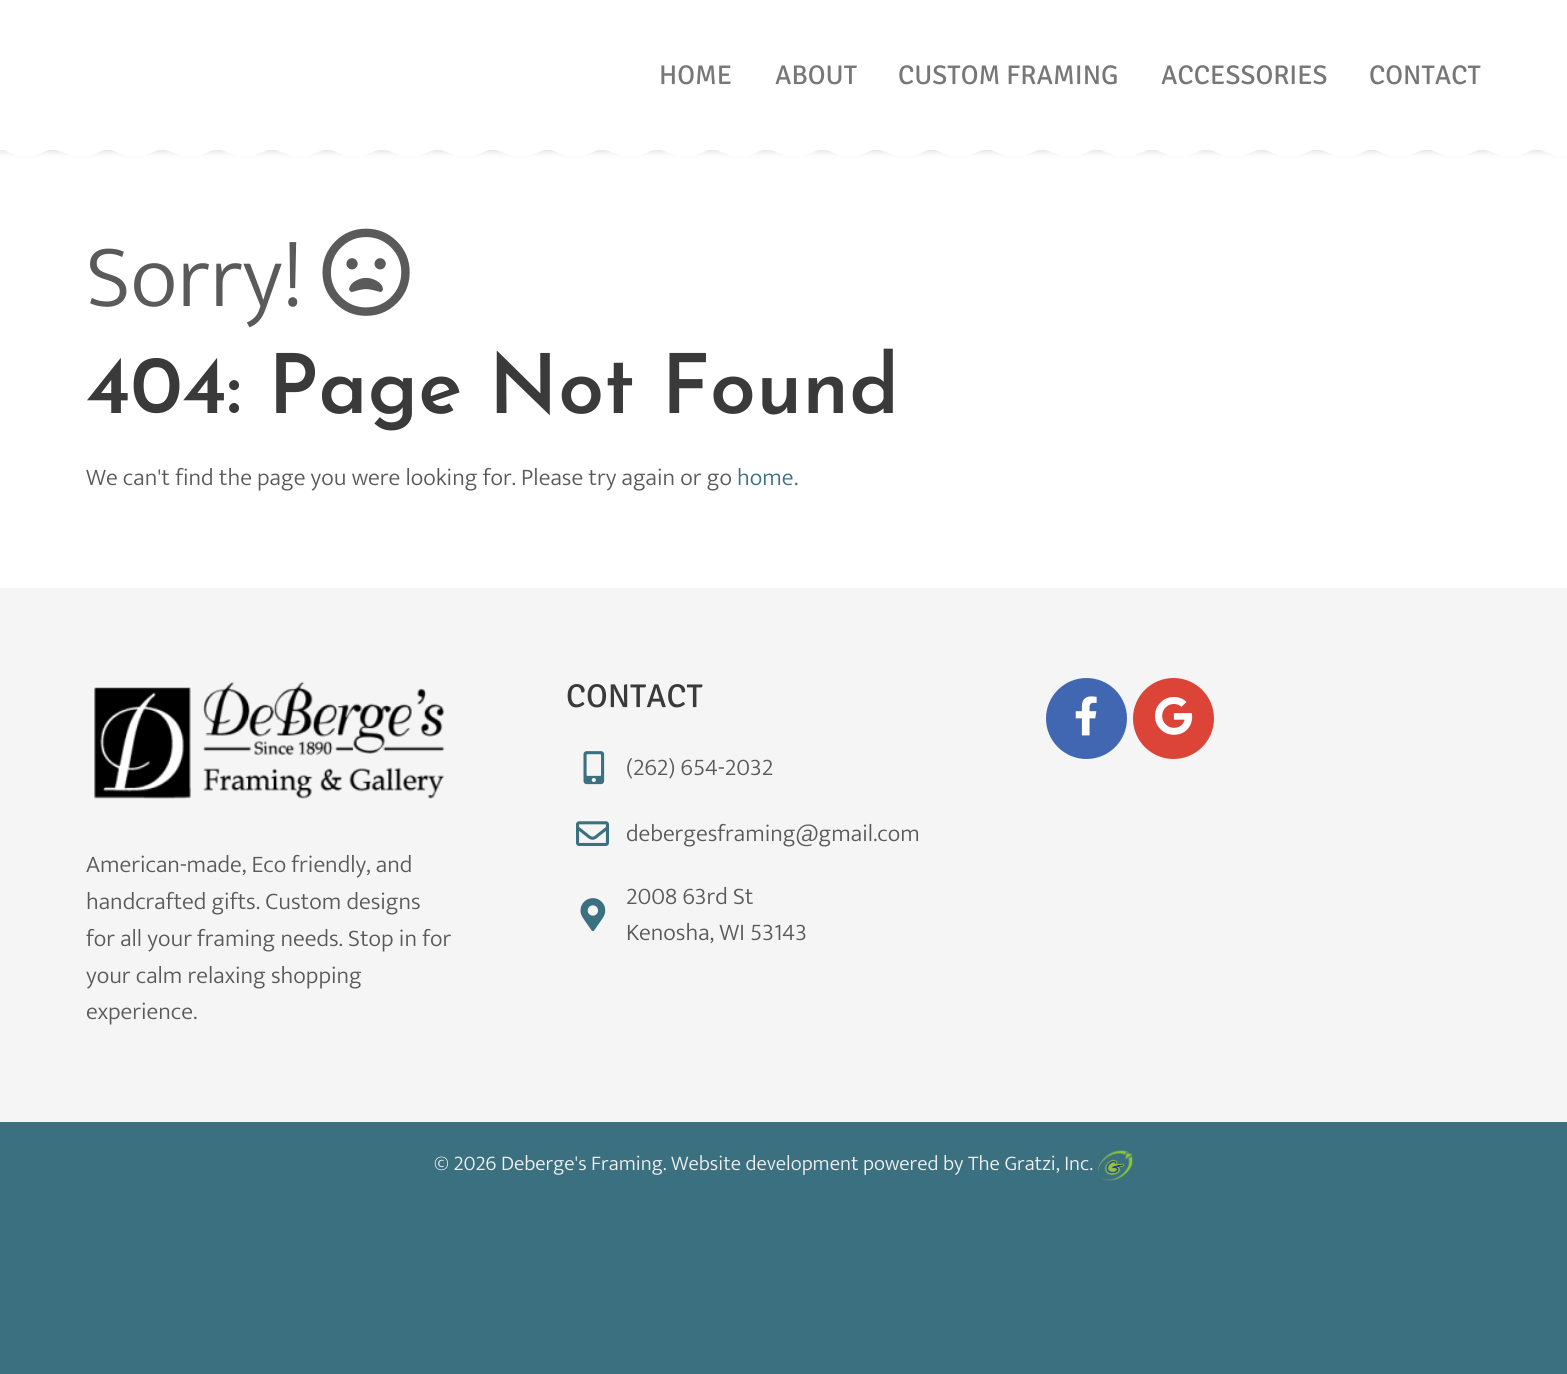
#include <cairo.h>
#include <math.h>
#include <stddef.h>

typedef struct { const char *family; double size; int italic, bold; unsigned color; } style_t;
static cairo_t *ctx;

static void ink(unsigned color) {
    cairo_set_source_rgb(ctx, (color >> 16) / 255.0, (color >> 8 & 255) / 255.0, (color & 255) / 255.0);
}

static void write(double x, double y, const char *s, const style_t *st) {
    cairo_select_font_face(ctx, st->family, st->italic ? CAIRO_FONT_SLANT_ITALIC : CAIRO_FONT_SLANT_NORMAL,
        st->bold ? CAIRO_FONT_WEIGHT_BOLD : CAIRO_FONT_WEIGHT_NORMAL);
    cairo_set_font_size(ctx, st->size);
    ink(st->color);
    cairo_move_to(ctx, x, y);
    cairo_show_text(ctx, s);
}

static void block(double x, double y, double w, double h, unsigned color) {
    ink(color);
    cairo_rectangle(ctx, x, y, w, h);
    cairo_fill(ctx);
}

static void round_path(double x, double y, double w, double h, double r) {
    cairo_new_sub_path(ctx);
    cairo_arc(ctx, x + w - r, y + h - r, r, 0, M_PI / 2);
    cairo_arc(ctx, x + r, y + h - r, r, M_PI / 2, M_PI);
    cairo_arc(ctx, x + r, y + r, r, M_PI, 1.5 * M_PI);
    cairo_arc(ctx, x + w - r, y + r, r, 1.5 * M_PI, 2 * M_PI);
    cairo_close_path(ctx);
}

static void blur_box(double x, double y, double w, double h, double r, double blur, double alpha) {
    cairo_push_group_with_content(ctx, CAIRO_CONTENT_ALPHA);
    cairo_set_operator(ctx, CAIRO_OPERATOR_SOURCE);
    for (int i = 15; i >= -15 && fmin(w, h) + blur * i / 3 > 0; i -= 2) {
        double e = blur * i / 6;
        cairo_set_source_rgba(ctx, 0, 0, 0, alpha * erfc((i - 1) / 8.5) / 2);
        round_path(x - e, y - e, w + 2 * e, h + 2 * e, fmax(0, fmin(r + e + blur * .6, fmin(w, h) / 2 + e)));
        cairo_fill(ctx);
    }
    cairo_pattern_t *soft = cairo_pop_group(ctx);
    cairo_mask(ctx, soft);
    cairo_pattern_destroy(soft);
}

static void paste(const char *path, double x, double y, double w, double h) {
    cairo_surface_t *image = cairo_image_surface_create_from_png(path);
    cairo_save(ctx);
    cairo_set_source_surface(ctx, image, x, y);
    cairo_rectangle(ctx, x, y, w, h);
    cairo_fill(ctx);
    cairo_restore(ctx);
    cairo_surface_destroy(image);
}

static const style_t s1 = {"Signika Light", 27, 0, 0, 0x777777};
static const style_t s2 = {"Mukta Vaani Light", 90, 0, 0, 0x5a5a5a};
static const style_t s3 = {"Josefin Sans Thin", 82.5, 0, 0, 0x3a3a3a};
static const style_t s4 = {"Mukta Vaani Light", 24, 0, 0, 0x5a5a5a};
static const style_t s5 = {"Mukta Vaani Light", 24, 0, 0, 0x3b7080};
static const style_t s6 = {"Signika Light", 33, 0, 0, 0x3a3a3a};
static const style_t s7 = {"Mukta Vaani Light", 21, 0, 0, 0xf0f0f0};

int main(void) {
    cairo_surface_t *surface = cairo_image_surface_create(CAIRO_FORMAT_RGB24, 1567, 1374);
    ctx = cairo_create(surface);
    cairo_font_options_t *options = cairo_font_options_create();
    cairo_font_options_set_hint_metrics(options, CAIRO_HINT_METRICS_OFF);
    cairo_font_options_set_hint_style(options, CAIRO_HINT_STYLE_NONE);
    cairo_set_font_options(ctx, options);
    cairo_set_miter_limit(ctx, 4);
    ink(0x3b7080);
    cairo_paint(ctx);
    block(0, 150, 1567, 438, 0xffffff);
    ink(0x000000);
    blur_box(0, 0, 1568, 150, 0, 4, 0.19);
    block(0, 0, 1567, 150, 0xffffff);
    write(659, 84, "HOME", &s1);
    write(775, 84, "ABOUT", &s1);
    write(898, 84, "CUSTOM FRAMING", &s1);
    write(1161, 84, "ACCESSORIES", &s1);
    write(1369, 84, "CONTACT", &s1);
    paste("pic1.png", 4, 150, 1563, 6);
    write(86, 306, "Sorry!", &s2);
    paste("pic2.png", 322, 228, 88, 88);
    write(86, 413, "404: Page Not Found", &s3);
    write(86, 485, "We can't find the page you were looking for. Please try again or go", &s4);
    write(737, 485, "home", &s5);
    write(794, 485, ".", &s4);
    block(0, 588, 1567, 534, 0xf5f5f5);
    paste("pic3.png", 94, 681, 351, 118);
    write(86, 872, "American-made, Eco friendly, and", &s4);
    write(86, 909, "handcrafted gifts. Custom designs", &s4);
    write(86, 946, "for all your framing needs. Stop in for", &s4);
    write(86, 983, "your calm relaxing shopping", &s4);
    write(86, 1019, "experience.", &s4);
    write(566, 707, "CONTACT", &s6);
    paste("pic4.png", 583, 751, 22, 34);
    write(626, 775, "(262) 654-2032", &s4);
    paste("pic5.png", 576, 821, 33, 25);
    write(626, 841, "debergesframing@gmail.com", &s4);
    paste("pic6.png", 580, 898, 26, 34);
    write(626, 904, "2008 63rd St", &s4);
    write(626, 940, "Kenosha, WI 53143", &s4);
    ink(0x4267b2);
    cairo_new_path(ctx);
    cairo_arc(ctx, 1086.5, 718.5, 40.5, 0, 2 * M_PI);
    cairo_fill(ctx);
    paste("pic7.png", 1075, 696, 22, 40);
    ink(0xdb4437);
    cairo_arc(ctx, 1173.5, 718.5, 40.5, 0, 2 * M_PI);
    cairo_fill(ctx);
    paste("pic8.png", 1155, 697, 38, 38);
    write(434, 1170, "© 2026 Deberge's Framing. Website development powered by The Gratzi, Inc.", &s7);
    paste("pic9.png", 1098, 1150, 35, 31);
    cairo_surface_write_to_png(surface, "screenshot.png");
    cairo_font_options_destroy(options);
    cairo_destroy(ctx);
    cairo_surface_destroy(surface);
    return 0;
}
